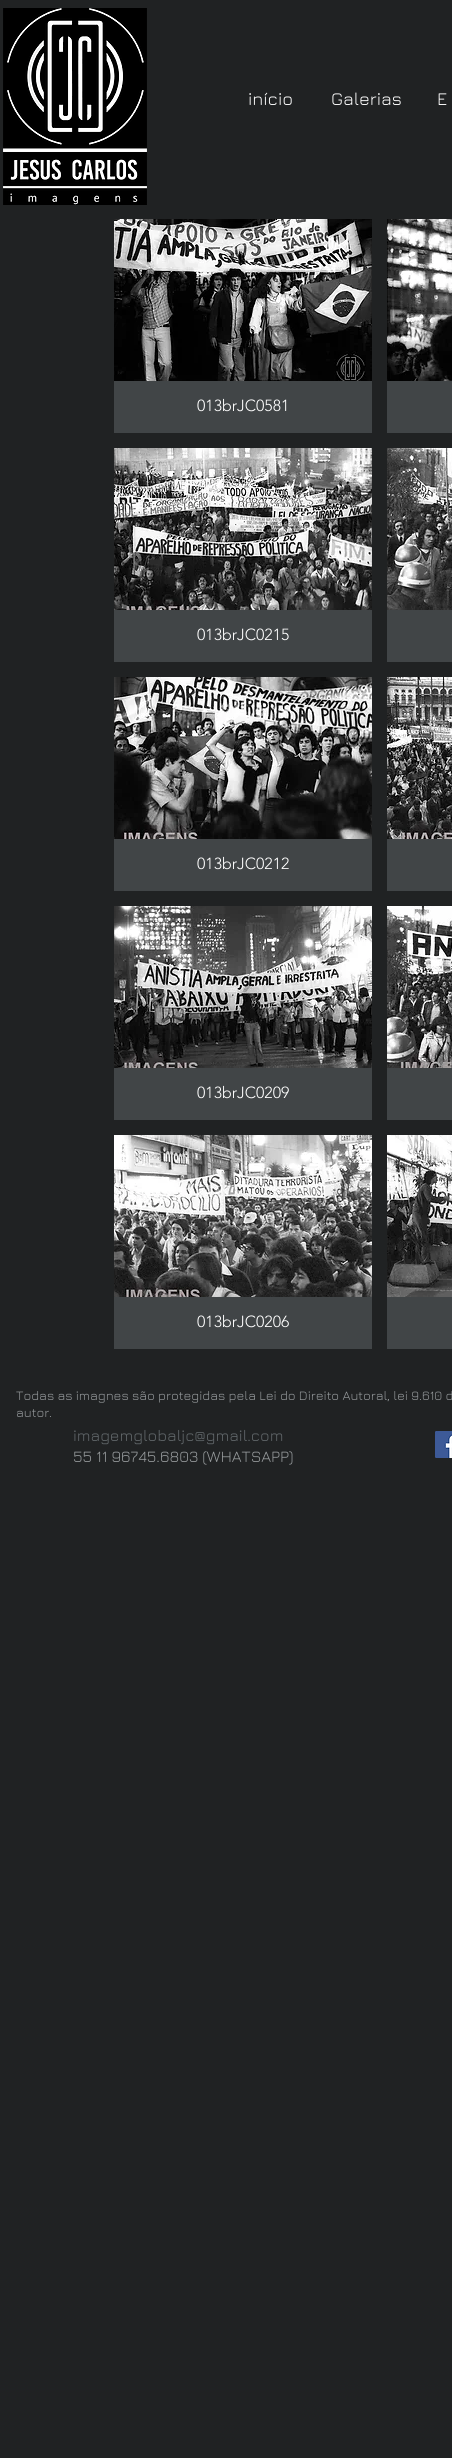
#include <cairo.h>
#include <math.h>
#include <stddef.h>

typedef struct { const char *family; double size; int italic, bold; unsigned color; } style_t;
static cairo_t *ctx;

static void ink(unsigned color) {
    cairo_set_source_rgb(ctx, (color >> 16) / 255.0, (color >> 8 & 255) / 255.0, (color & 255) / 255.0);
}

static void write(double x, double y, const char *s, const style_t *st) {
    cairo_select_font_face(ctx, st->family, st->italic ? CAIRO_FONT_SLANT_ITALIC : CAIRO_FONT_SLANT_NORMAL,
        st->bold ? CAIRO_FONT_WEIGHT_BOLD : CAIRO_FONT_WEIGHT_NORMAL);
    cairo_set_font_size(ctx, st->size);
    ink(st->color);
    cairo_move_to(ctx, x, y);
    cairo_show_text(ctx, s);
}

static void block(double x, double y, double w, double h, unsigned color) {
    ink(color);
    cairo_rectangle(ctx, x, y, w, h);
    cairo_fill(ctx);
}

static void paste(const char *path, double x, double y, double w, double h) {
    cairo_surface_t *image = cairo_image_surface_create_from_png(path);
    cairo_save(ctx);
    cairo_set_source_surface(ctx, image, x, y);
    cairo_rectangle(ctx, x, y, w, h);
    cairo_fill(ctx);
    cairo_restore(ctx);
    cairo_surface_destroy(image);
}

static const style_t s1 = {"Jura", 18, 0, 0, 0xffffff};
static const style_t s2 = {"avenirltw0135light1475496 Light", 16, 0, 0, 0xffffff};
static const style_t s3 = {"Jura", 13, 0, 0, 0x969a9c};
static const style_t s4 = {"Jura", 16, 0, 0, 0x62686b};
static const style_t s5 = {"Jura", 16, 0, 0, 0x969a9c};

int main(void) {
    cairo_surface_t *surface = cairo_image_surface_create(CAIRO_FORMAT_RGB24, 452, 2458);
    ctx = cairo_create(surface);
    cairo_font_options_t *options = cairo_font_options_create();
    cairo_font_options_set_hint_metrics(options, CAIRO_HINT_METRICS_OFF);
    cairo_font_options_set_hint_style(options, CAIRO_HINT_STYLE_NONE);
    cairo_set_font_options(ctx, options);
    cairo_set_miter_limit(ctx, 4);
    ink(0x202223);
    cairo_paint(ctx);
    paste("pic1.png", 3, 8, 144, 197);
    write(248, 105, "início", &s1);
    write(331, 105, "Galerias", &s1);
    write(437, 105, "E", &s1);
    paste("pic2.png", 114, 219, 258, 162);
    block(114, 381, 258, 52, 0x414547);
    write(197, 411, "013brJC0581", &s2);
    paste("pic3.png", 387, 219, 65, 162);
    block(387, 381, 65, 52, 0x414547);
    paste("pic4.png", 114, 448, 258, 162);
    block(114, 610, 258, 52, 0x414547);
    write(197, 640, "013brJC0215", &s2);
    paste("pic5.png", 387, 448, 65, 162);
    block(387, 610, 65, 52, 0x414547);
    paste("pic6.png", 114, 677, 258, 162);
    block(114, 839, 258, 52, 0x414547);
    write(197, 869, "013brJC0212", &s2);
    paste("pic7.png", 387, 677, 65, 162);
    block(387, 839, 65, 52, 0x414547);
    paste("pic8.png", 114, 906, 258, 162);
    block(114, 1068, 258, 52, 0x414547);
    write(197, 1098, "013brJC0209", &s2);
    paste("pic9.png", 387, 906, 65, 162);
    block(387, 1068, 65, 52, 0x414547);
    paste("pic10.png", 114, 1135, 258, 162);
    block(114, 1297, 258, 52, 0x414547);
    write(197, 1327, "013brJC0206", &s2);
    paste("pic11.png", 387, 1135, 65, 162);
    block(387, 1297, 65, 52, 0x414547);
    write(16, 1400, "Todas as imagnes são protegidas pela Lei do Direito Autoral, lei 9.610 d", &s3);
    write(16, 1417, "autor.", &s3);
    write(73, 1441, "imagemglobaljc@gmail.com", &s4);
    write(73, 1462, "55 11 96745.6803 (WHATSAPP)", &s5);
    paste("pic12.png", 435, 1431, 17, 27);
    cairo_surface_write_to_png(surface, "screenshot.png");
    cairo_font_options_destroy(options);
    cairo_destroy(ctx);
    cairo_surface_destroy(surface);
    return 0;
}
